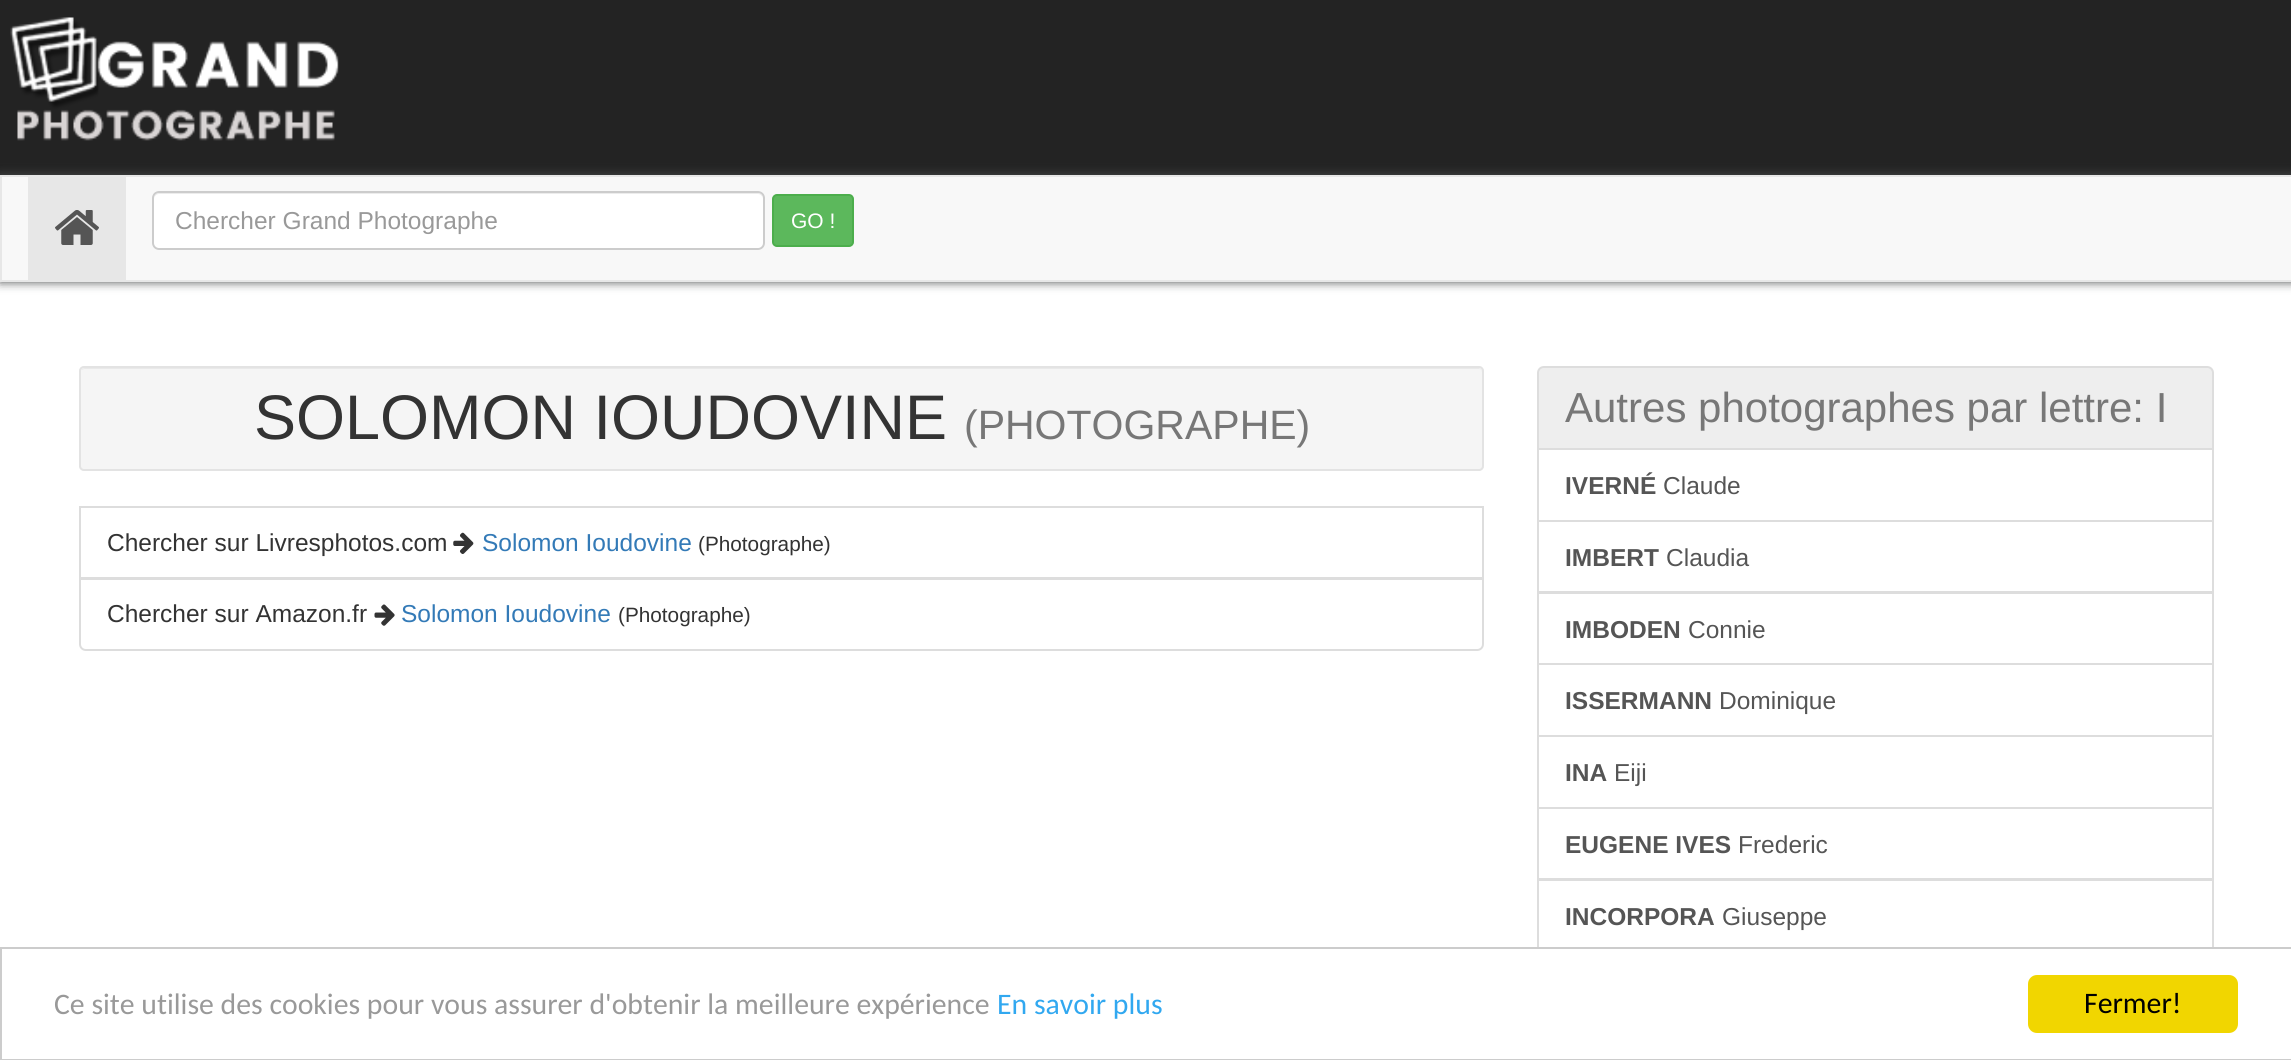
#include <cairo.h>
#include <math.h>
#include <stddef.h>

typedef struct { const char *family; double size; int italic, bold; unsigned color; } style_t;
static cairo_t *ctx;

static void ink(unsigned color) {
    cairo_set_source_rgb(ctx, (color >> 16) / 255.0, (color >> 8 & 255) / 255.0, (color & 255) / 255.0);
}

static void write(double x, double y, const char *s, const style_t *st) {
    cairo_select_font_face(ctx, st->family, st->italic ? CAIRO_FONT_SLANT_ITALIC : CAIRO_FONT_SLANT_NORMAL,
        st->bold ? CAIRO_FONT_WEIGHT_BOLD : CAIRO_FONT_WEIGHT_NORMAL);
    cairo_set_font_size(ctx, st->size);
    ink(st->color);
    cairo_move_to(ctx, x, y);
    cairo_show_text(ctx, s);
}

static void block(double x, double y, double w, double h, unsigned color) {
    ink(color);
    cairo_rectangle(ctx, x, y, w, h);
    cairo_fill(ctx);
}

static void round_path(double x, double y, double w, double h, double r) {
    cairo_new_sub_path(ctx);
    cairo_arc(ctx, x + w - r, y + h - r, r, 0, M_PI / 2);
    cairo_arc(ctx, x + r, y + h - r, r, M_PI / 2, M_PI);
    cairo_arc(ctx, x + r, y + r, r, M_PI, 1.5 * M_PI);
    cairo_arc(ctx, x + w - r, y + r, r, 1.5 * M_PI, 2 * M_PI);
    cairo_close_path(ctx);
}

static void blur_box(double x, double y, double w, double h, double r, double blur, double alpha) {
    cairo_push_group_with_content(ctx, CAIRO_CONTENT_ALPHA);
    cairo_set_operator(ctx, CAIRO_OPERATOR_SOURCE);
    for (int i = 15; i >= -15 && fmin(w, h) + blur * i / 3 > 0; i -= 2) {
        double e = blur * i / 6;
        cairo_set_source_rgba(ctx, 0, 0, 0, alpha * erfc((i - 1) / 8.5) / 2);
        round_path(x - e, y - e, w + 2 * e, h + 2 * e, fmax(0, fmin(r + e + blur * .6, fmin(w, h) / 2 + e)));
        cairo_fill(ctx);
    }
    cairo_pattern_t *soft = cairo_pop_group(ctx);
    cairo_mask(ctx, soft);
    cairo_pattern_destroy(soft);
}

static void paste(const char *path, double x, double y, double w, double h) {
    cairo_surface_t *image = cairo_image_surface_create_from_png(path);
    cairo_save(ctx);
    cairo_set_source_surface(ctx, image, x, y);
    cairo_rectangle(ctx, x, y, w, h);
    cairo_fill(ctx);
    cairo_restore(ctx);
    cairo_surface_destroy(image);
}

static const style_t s1 = {"Liberation Sans", 24.5, 0, 0, 0x999999};
static const style_t s2 = {"Liberation Sans", 21, 0, 0, 0xffffff};
static const style_t s3 = {"Liberation Sans", 63, 0, 0, 0x333333};
static const style_t s4 = {"Liberation Sans", 41, 0, 0, 0x777777};
static const style_t s5 = {"Liberation Sans", 24.5, 0, 0, 0x333333};
static const style_t s6 = {"Liberation Sans", 24.5, 0, 0, 0x337ab7};
static const style_t s7 = {"Liberation Sans", 20.75, 0, 0, 0x333333};
static const style_t s8 = {"Liberation Sans", 42, 0, 0, 0x777777};
static const style_t s9 = {"Liberation Sans", 24.5, 0, 1, 0x555555};
static const style_t s10 = {"Liberation Sans", 24.5, 0, 0, 0x555555};
static const style_t s11 = {"Carlito", 29.75, 0, 0, 0x999999};
static const style_t s12 = {"Carlito", 29.75, 0, 0, 0x31a8f0};
static const style_t s13 = {"Carlito", 29.75, 0, 0, 0x000000};

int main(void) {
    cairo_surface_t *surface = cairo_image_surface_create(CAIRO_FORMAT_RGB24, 2291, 1060);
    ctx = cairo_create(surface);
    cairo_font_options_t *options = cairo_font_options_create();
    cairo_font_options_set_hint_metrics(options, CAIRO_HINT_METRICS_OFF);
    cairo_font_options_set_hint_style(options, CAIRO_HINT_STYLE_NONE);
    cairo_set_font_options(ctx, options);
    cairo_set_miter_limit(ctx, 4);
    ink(0xffffff);
    cairo_paint(ctx);
    block(0, 0, 2291, 175, 0x232323);
    paste("pic1.png", 10, 17, 329, 124);
    ink(0x4a4b4c);
    blur_box(0, 175, 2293, 107, 0, 5, 1);
    ink(0xf8f8f8);
    cairo_rectangle(ctx, 1, 176, 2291, 105);
    cairo_fill_preserve(ctx);
    ink(0xe7e7e7);
    cairo_stroke(ctx);
    block(28, 177, 98, 103, 0xe7e7e7);
    paste("pic2.png", 55, 210, 44, 35);
    ink(0xffffff);
    round_path(152, 191, 613, 59, 7);
    cairo_fill(ctx);
    ink(0xececec);
    cairo_new_path(ctx);
    cairo_move_to(ctx, 159, 194);
    cairo_line_to(ctx, 758, 194);
    cairo_curve_to(ctx, 761, 194, 763, 197, 763, 200);
    cairo_curve_to(ctx, 763, 197, 762, 193, 758, 193);
    cairo_line_to(ctx, 159, 193);
    cairo_curve_to(ctx, 155, 193, 154, 197, 154, 200);
    cairo_curve_to(ctx, 154, 197, 156, 194, 159, 194);
    cairo_close_path(ctx);
    cairo_fill(ctx);
    round_path(153, 192, 611, 57, 6);
    ink(0xcccccc);
    cairo_stroke(ctx);
    write(175, 229, "Chercher Grand Photographe", &s1);
    ink(0x5cb85c);
    round_path(773, 195, 80, 51, 4);
    cairo_fill_preserve(ctx);
    ink(0x4cae4c);
    cairo_stroke(ctx);
    write(791, 228, "GO !", &s2);
    ink(0xf5f5f5);
    round_path(79, 366, 1405, 105, 5);
    cairo_fill(ctx);
    ink(0xe9e9e9);
    cairo_new_path(ctx);
    cairo_move_to(ctx, 84, 369);
    cairo_line_to(ctx, 1479, 369);
    cairo_curve_to(ctx, 1481, 369, 1482, 371, 1482, 373);
    cairo_line_to(ctx, 1482, 372);
    cairo_curve_to(ctx, 1482, 370, 1480, 368, 1478, 368);
    cairo_line_to(ctx, 85, 368);
    cairo_curve_to(ctx, 84, 368, 82, 369, 82, 370);
    cairo_close_path(ctx);
    cairo_fill(ctx);
    round_path(80, 367, 1403, 103, 4);
    ink(0xe3e3e3);
    cairo_stroke(ctx);
    write(254, 439, "SOLOMON IOUDOVINE", &s3);
    write(964, 439, "(PHOTOGRAPHE)", &s4);
    cairo_rectangle(ctx, 80, 507, 1403, 71);
    ink(0xdddddd);
    cairo_stroke(ctx);
    write(107, 551, "Chercher sur Livresphotos.com", &s5);
    paste("pic3.png", 453, 532, 21, 22);
    write(482, 551, "Solomon Ioudovine", &s6);
    write(698, 551, "(Photographe)", &s7);
    ink(0xffffff);
    cairo_new_path(ctx);
    cairo_move_to(ctx, 80, 579);
    cairo_line_to(ctx, 1483, 579);
    cairo_line_to(ctx, 1483, 644);
    cairo_curve_to(ctx, 1483, 647.5, 1480.5, 650, 1477, 650);
    cairo_line_to(ctx, 86, 650);
    cairo_curve_to(ctx, 82.5, 650, 80, 647.5, 80, 644);
    cairo_close_path(ctx);
    cairo_fill_preserve(ctx);
    ink(0xdddddd);
    cairo_stroke(ctx);
    write(107, 622, "Chercher sur Amazon.fr", &s5);
    paste("pic4.png", 374, 604, 21, 22);
    write(401, 622, "Solomon Ioudovine", &s6);
    write(618, 622, "(Photographe)", &s7);
    ink(0xeeeeee);
    cairo_new_path(ctx);
    cairo_move_to(ctx, 1544, 367);
    cairo_line_to(ctx, 2207, 367);
    cairo_curve_to(ctx, 2210.5, 367, 2213, 369.5, 2213, 373);
    cairo_line_to(ctx, 2213, 449);
    cairo_line_to(ctx, 1538, 449);
    cairo_line_to(ctx, 1538, 373);
    cairo_curve_to(ctx, 1538, 369.5, 1540.5, 367, 1544, 367);
    cairo_close_path(ctx);
    cairo_fill_preserve(ctx);
    ink(0xdddddd);
    cairo_stroke(ctx);
    write(1565, 422, "Autres photographes par lettre: I", &s8);
    cairo_rectangle(ctx, 1538, 449, 675, 72);
    ink(0xdddddd);
    cairo_stroke(ctx);
    write(1565, 494, "IVERNÉ", &s9);
    write(1663, 494, "Claude", &s10);
    cairo_rectangle(ctx, 1538, 521, 675, 71);
    ink(0xdddddd);
    cairo_stroke(ctx);
    write(1565, 566, "IMBERT", &s9);
    write(1666, 566, "Claudia", &s10);
    cairo_rectangle(ctx, 1538, 593, 675, 71);
    ink(0xdddddd);
    cairo_stroke(ctx);
    write(1565, 638, "IMBODEN", &s9);
    write(1688, 638, "Connie", &s10);
    cairo_rectangle(ctx, 1538, 664, 675, 72);
    ink(0xdddddd);
    cairo_stroke(ctx);
    write(1565, 709, "ISSERMANN", &s9);
    write(1719, 709, "Dominique", &s10);
    cairo_rectangle(ctx, 1538, 736, 675, 72);
    ink(0xdddddd);
    cairo_stroke(ctx);
    write(1565, 781, "INA", &s9);
    write(1614, 781, "Eiji", &s10);
    cairo_rectangle(ctx, 1538, 808, 675, 71);
    ink(0xdddddd);
    cairo_stroke(ctx);
    write(1565, 853, "EUGENE IVES", &s9);
    write(1738, 853, "Frederic", &s10);
    cairo_rectangle(ctx, 1538, 880, 675, 71);
    ink(0xdddddd);
    cairo_stroke(ctx);
    write(1565, 925, "INCORPORA", &s9);
    write(1722, 925, "Giuseppe", &s10);
    block(1537, 949, 677, 3, 0xffffff);
    cairo_rectangle(ctx, 1, 948, 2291, 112);
    ink(0xcccccc);
    cairo_stroke(ctx);
    write(54, 1014, "Ce site utilise des cookies pour vous assurer d'obtenir la meilleure expérience", &s11);
    write(997, 1014, "En savoir plus", &s12);
    ink(0xf1d600);
    round_path(2028, 975, 210, 58, 9);
    cairo_fill(ctx);
    write(2084, 1013, "Fermer!", &s13);
    cairo_surface_write_to_png(surface, "screenshot.png");
    cairo_font_options_destroy(options);
    cairo_destroy(ctx);
    cairo_surface_destroy(surface);
    return 0;
}
